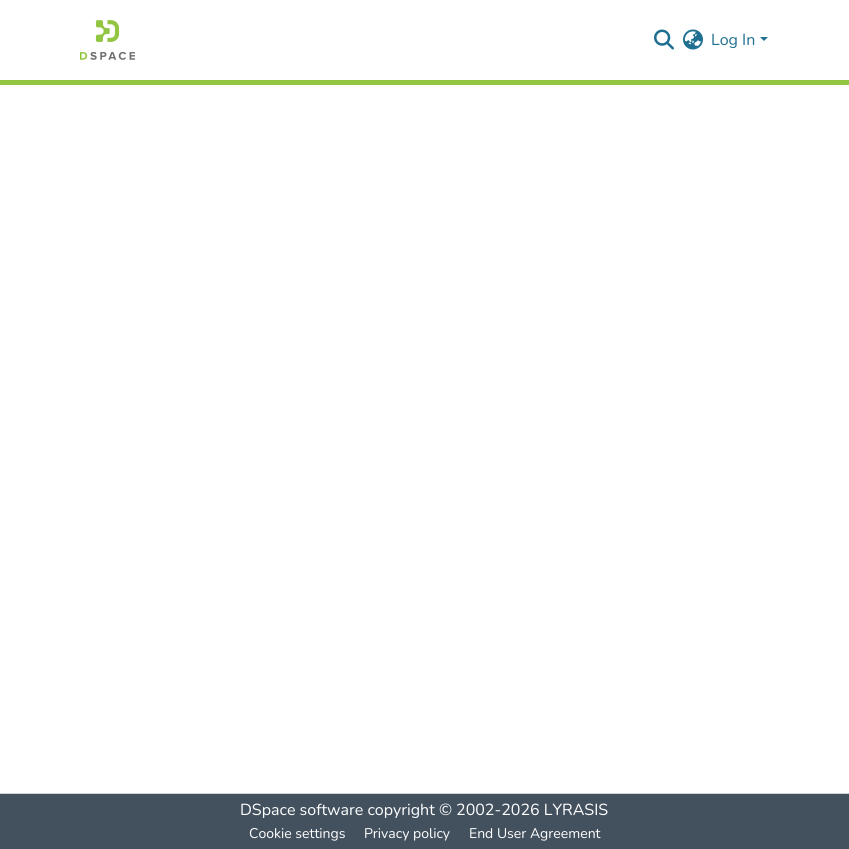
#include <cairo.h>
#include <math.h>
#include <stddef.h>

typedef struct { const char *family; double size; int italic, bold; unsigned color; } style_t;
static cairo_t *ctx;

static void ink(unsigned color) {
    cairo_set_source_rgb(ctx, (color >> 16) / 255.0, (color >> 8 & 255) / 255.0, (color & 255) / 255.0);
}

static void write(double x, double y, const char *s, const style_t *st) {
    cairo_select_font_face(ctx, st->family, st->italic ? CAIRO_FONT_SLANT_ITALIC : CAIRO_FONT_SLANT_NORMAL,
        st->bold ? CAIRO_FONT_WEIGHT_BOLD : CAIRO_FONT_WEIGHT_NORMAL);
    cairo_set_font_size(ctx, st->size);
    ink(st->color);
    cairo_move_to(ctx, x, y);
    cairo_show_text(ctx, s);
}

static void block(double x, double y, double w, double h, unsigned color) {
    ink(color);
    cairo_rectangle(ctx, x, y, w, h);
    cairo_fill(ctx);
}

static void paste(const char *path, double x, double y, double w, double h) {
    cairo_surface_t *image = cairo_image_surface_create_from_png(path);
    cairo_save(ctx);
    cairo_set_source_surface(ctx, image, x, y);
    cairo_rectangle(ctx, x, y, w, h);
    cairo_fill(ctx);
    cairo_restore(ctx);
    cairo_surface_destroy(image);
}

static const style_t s1 = {"Nunito", 16, 0, 0, 0x1e6f90};
static const style_t s2 = {"Nunito", 16, 0, 0, 0xffffff};
static const style_t s3 = {"Nunito", 14, 0, 0, 0xffffff};

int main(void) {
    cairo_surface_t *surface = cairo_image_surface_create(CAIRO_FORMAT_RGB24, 849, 849);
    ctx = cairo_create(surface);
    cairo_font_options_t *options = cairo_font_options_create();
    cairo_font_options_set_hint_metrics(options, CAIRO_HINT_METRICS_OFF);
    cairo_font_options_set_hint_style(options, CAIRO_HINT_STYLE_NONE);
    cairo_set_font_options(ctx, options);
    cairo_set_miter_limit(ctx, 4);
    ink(0xffffff);
    cairo_paint(ctx);
    block(0, 80, 849, 5, 0x92c642);
    paste("pic1.png", 80, 20, 55, 40);
    paste("pic2.png", 654, 29, 20, 21);
    paste("pic3.png", 683, 29, 20, 21);
    write(711, 45, "Log In", &s1);
    cairo_new_path(ctx);
    cairo_move_to(ctx, 760, 37);
    cairo_line_to(ctx, 768, 37);
    cairo_line_to(ctx, 764, 41);
    cairo_close_path(ctx);
    cairo_fill(ctx);
    block(0, 794, 849, 55, 0x43515f);
    block(0, 793, 849, 1, 0xced4da);
    write(240, 815, "DSpace software copyright © 2002-2026 LYRASIS", &s2);
    write(249, 838, "Cookie settings", &s3);
    block(354, 822, 1, 23, 0x495057);
    write(364, 838, "Privacy policy", &s3);
    block(459, 822, 1, 23, 0x495057);
    write(469, 838, "End User Agreement", &s3);
    cairo_surface_write_to_png(surface, "screenshot.png");
    cairo_font_options_destroy(options);
    cairo_destroy(ctx);
    cairo_surface_destroy(surface);
    return 0;
}
